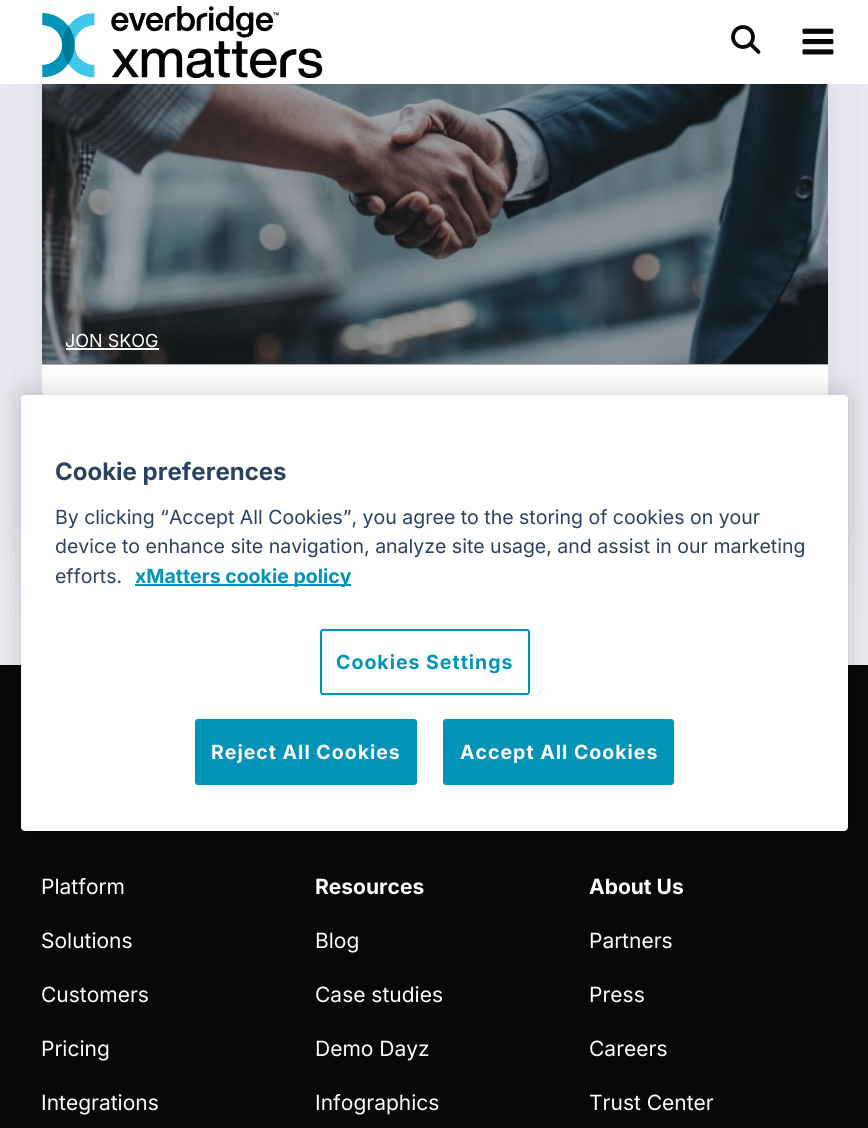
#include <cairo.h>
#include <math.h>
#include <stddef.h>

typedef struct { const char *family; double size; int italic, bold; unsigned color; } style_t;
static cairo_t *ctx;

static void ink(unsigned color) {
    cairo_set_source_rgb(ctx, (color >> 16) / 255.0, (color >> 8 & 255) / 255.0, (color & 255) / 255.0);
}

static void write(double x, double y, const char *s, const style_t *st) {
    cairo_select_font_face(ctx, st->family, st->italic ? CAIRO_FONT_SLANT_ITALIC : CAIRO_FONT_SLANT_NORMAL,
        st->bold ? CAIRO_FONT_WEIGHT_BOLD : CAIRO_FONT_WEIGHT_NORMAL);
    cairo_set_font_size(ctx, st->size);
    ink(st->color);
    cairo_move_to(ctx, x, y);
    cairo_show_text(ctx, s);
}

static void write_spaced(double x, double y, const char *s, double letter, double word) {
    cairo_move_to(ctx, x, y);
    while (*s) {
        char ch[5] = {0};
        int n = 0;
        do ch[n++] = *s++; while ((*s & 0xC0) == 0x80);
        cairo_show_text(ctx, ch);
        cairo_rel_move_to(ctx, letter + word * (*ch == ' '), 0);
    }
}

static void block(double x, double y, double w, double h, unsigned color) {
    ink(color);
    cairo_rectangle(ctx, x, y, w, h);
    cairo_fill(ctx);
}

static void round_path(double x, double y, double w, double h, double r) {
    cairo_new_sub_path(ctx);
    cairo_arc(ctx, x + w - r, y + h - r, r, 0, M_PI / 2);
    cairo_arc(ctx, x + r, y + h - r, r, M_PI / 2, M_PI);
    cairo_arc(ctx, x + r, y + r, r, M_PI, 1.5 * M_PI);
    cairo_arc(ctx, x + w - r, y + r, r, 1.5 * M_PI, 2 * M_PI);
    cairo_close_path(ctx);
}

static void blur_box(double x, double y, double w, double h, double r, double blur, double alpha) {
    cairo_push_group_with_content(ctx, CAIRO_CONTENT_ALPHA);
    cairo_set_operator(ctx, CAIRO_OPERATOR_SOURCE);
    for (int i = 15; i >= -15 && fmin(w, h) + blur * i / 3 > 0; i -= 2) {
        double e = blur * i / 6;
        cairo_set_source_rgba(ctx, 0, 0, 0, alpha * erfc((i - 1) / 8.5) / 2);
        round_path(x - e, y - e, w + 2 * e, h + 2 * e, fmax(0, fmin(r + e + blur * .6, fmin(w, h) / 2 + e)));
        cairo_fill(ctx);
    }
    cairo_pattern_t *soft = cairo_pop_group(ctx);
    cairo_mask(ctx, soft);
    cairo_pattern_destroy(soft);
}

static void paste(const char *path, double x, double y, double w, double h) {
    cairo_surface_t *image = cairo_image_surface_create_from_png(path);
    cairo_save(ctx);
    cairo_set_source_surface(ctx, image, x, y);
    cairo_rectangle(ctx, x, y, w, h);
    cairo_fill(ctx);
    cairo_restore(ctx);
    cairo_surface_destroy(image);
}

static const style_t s1 = {"Inter", 18, 0, 0, 0xffffff};
static const style_t s2 = {"Inter", 21, 0, 0, 0xffffff};
static const style_t s3 = {"Inter", 21, 0, 1, 0xffffff};
static const style_t s4 = {"Inter", 24, 0, 1, 0x2b4160};
static const style_t s5 = {"Inter", 19.5, 0, 0, 0x2b4160};
static const style_t s6 = {"Inter", 19.5, 0, 1, 0x0293b9};

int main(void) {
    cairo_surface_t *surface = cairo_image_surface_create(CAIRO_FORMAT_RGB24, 868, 1128);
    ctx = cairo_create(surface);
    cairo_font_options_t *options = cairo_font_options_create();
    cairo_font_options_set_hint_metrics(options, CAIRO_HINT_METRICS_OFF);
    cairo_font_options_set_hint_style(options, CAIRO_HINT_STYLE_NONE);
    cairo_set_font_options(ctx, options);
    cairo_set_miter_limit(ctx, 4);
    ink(0xededf4);
    cairo_paint(ctx);
    ink(0xd5d5e2);
    blur_box(42, -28, 786, 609, 68, 37.5, 1);
    block(0, 0, 868, 84, 0xffffff);
    paste("pic1.png", 42, 6, 281, 72);
    paste("pic2.png", 802, 28, 32, 27);
    cairo_arc(ctx, 743, 37, 10, 0, 2 * M_PI);
    ink(0x070707);
    cairo_set_line_width(ctx, 3.8);
    cairo_stroke(ctx);
    cairo_new_path(ctx);
    cairo_move_to(ctx, 750.5, 44);
    cairo_line_to(ctx, 758.5, 52);
    cairo_set_line_cap(ctx, CAIRO_LINE_CAP_ROUND);
    cairo_set_line_join(ctx, CAIRO_LINE_JOIN_ROUND);
    cairo_stroke(ctx);
    block(42, 364, 786, 31, 0xffffff);
    paste("pic3.png", 42, 84, 786, 280);
    cairo_set_source_rgba(ctx, 0.133, 0.184, 0.216, 0.4);
    cairo_rectangle(ctx, 42, 84, 786, 281);
    cairo_fill(ctx);
    write(65, 347, "JON SKOG", &s1);
    block(66, 348, 93, 2, 0xffffff);
    block(0, 665, 868, 463, 0x070707);
    write(41, 894, "Platform", &s2);
    write(41, 948, "Solutions", &s2);
    write(41, 1002, "Customers", &s2);
    write(41, 1056, "Pricing", &s2);
    write(41, 1110, "Integrations", &s2);
    write(315, 894, "Resources", &s3);
    write(315, 948, "Blog", &s2);
    write(315, 1002, "Case studies", &s2);
    write(315, 1056, "Demo Dayz", &s2);
    write(315, 1110, "Infographics", &s2);
    write(589, 894, "About Us", &s3);
    write(589, 948, "Partners", &s2);
    write(589, 1002, "Press", &s2);
    write(589, 1056, "Careers", &s2);
    write(589, 1110, "Trust Center", &s2);
    ink(0x000000);
    blur_box(21, 395, 827, 436, 4, 13.5, 0.2);
    ink(0xffffff);
    round_path(21, 395, 827, 436, 4);
    cairo_fill(ctx);
    write(55, 480, "Cookie preferences", &s4);
    write(55, 524, "By clicking “Accept All Cookies”, you agree to the storing of cookies on your", &s5);
    write(55, 553, "device to enhance site navigation, analyze site usage, and assist in our marketing", &s5);
    write(55, 583, "efforts.", &s5);
    block(135, 584, 216, 2, 0x0293b9);
    write(135, 583, "xMatters cookie policy", &s6);
    round_path(321, 630, 208, 64, 2);
    cairo_set_line_width(ctx, 2);
    cairo_set_line_cap(ctx, CAIRO_LINE_CAP_BUTT);
    cairo_set_line_join(ctx, CAIRO_LINE_JOIN_MITER);
    cairo_stroke(ctx);
    write_spaced(336, 669, "Cookies Settings", 1, 0);
    round_path(196, 720, 220, 64, 2);
    cairo_fill_preserve(ctx);
    cairo_stroke(ctx);
    ink(0xffffff);
    write_spaced(211, 759, "Reject All Cookies", 1, 0);
    ink(0x0293b9);
    round_path(444, 720, 229, 64, 2);
    cairo_fill_preserve(ctx);
    cairo_stroke(ctx);
    ink(0xffffff);
    write_spaced(460, 759, "Accept All Cookies", 1, 0);
    cairo_surface_write_to_png(surface, "screenshot.png");
    cairo_font_options_destroy(options);
    cairo_destroy(ctx);
    cairo_surface_destroy(surface);
    return 0;
}
